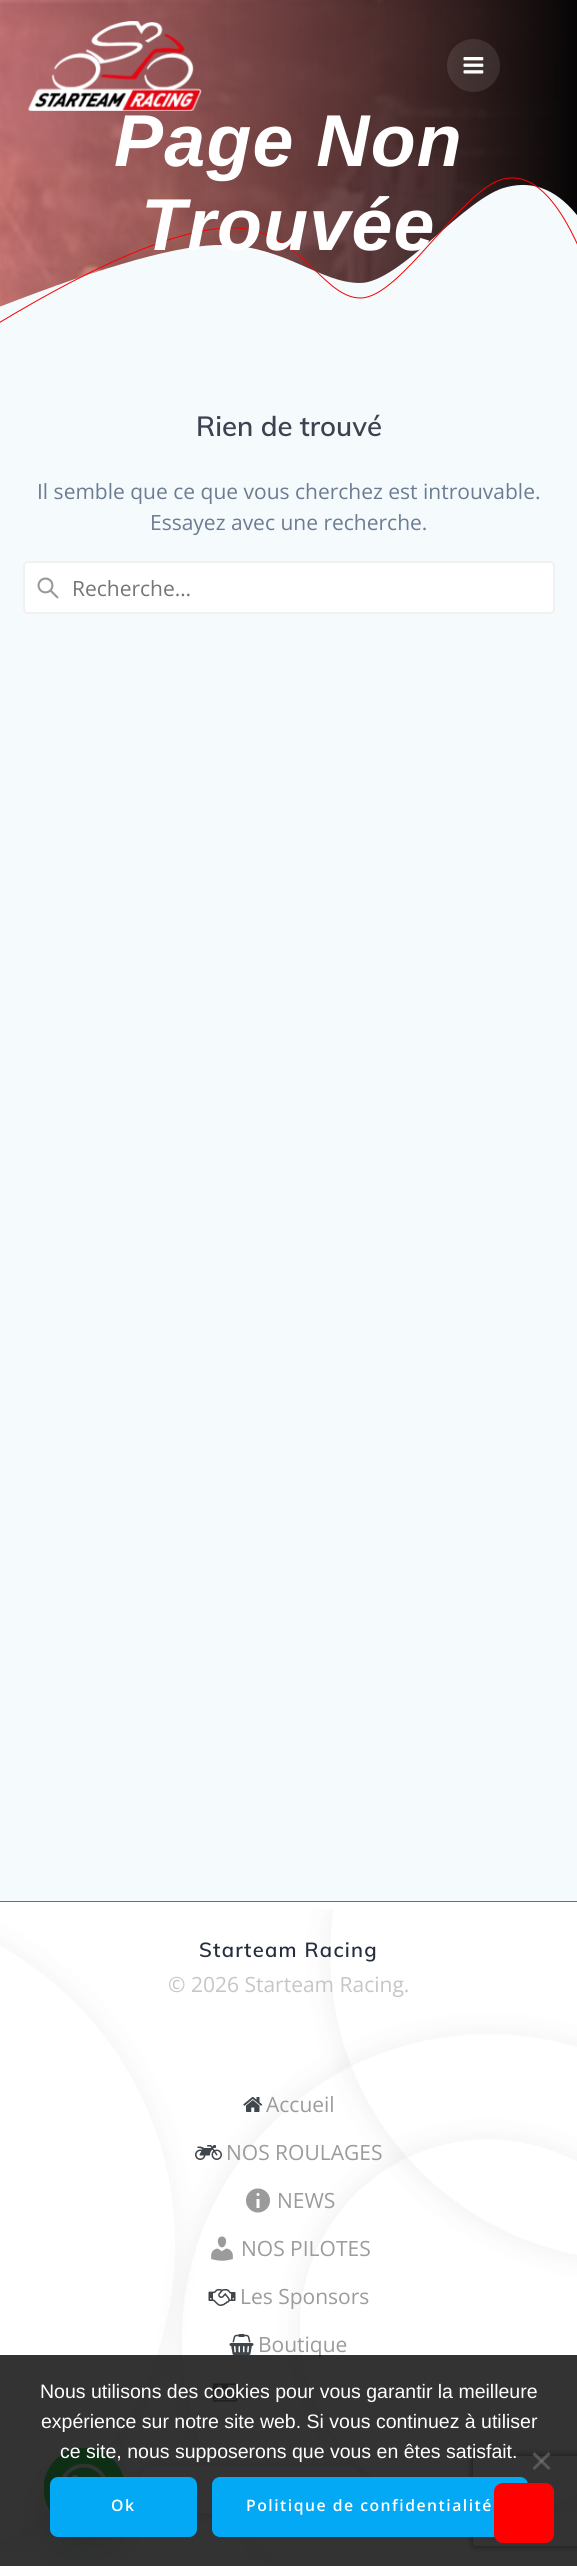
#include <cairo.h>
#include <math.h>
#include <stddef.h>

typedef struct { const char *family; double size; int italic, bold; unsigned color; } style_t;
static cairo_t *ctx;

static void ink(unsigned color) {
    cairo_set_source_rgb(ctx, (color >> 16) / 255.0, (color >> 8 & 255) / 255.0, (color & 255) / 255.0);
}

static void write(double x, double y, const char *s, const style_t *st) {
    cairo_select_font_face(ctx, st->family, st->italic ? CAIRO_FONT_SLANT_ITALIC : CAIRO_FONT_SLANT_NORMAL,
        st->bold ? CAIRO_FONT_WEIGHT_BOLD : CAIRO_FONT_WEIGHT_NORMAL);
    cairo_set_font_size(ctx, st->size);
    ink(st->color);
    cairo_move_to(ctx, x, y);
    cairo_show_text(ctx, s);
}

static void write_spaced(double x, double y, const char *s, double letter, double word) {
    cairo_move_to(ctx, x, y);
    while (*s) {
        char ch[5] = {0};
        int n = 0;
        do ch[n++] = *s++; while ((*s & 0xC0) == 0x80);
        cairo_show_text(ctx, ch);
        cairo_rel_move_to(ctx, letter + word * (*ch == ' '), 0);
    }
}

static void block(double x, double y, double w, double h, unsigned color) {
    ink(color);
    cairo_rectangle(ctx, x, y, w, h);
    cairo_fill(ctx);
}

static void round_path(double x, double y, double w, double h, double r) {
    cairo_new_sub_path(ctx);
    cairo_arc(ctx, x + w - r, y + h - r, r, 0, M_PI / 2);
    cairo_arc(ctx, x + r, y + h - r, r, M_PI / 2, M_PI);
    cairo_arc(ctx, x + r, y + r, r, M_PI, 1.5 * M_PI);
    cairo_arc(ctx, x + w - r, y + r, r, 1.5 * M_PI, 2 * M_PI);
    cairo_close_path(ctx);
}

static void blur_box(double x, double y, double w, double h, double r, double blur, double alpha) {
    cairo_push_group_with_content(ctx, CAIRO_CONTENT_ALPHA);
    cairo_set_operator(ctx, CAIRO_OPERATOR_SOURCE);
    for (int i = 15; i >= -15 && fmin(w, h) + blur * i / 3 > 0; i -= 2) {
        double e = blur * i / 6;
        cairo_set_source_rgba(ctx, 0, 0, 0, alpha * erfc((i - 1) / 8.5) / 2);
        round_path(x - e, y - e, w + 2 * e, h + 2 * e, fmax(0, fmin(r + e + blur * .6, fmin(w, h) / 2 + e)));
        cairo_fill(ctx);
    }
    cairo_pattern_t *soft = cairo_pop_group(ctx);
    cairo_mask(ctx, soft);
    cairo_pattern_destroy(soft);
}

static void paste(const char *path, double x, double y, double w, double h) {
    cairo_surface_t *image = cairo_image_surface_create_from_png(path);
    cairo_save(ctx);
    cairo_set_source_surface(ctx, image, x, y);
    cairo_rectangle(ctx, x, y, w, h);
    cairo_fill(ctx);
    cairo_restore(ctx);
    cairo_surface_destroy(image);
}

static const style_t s1 = {"Muli SemiBold", 27.5, 0, 0, 0x3c424f};
static const style_t s2 = {"Open Sans", 21, 0, 0, 0x6b7c93};
static const style_t s3 = {"Open Sans", 21, 0, 0, 0x757575};
static const style_t s4 = {"Open Sans", 21, 0, 0, 0xc6c6c6};
static const style_t s5 = {"Open Sans", 21, 0, 0, 0x9b9b9b};
static const style_t s6 = {"Liberation Sans", 19.5, 0, 0, 0xffffff};

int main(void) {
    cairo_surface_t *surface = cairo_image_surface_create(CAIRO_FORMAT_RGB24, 577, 2566);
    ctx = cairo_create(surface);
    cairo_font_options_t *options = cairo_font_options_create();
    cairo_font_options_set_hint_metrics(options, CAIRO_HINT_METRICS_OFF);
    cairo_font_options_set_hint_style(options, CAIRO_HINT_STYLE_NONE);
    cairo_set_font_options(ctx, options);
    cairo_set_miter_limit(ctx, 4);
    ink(0xffffff);
    cairo_paint(ctx);
    paste("pic3.png", 0, 0, 577, 307);
    paste("pic1.png", 28, 21, 174, 90);
    cairo_set_source_rgba(ctx, 1, 1, 1, 0.1);
    cairo_arc(ctx, 473.5, 65.5, 26.5, 0, 2 * M_PI);
    cairo_fill(ctx);
    paste("pic2.png", 463, 57, 21, 17);
    ink(0xf5fafd);
    cairo_new_path(ctx);
    cairo_move_to(ctx, -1, 307);
    cairo_curve_to(ctx, 107, 265, 182, 244, 223, 245);
    cairo_curve_to(ctx, 285, 246, 320, 283, 360, 283);
    cairo_curve_to(ctx, 400, 283, 466, 196, 507, 187);
    cairo_curve_to(ctx, 535, 180, 559, 191, 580, 219);
    cairo_line_to(ctx, 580, 344);
    cairo_line_to(ctx, -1, 346);
    cairo_close_path(ctx);
    cairo_fill(ctx);
    cairo_new_path(ctx);
    cairo_move_to(ctx, -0.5, 322.5);
    cairo_curve_to(ctx, 98.5, 263, 173.5, 231.5, 224, 228);
    cairo_curve_to(ctx, 299, 223, 320.5, 298, 360.5, 298);
    cairo_curve_to(ctx, 400.5, 298, 462, 188.5, 503.5, 179);
    cairo_curve_to(ctx, 531, 172.5, 556.5, 196.5, 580, 250);
    ink(0xfa0000);
    cairo_set_line_width(ctx, 1);
    cairo_stroke(ctx);
    cairo_select_font_face(ctx, "Liberation Sans", CAIRO_FONT_SLANT_ITALIC, CAIRO_FONT_WEIGHT_BOLD);
    cairo_set_font_size(ctx, 73.5);
    ink(0xffffff);
    write_spaced(114, 166, "Page Non", 1.25, 0);
    write_spaced(141, 250, "Trouvée", 1.25, 0);
    block(0, 344, 577, 1557, 0xf5fafd);
    write(196, 436, "Rien de trouvé", &s1);
    write(37, 499, "Il semble que ce que vous cherchez est introuvable.", &s2);
    write(150, 530, "Essayez avec une recherche.", &s2);
    ink(0xffffff);
    round_path(23, 561, 532, 53, 5);
    cairo_fill(ctx);
    paste("pic4.png", 37, 577, 22, 22);
    round_path(24, 562, 530, 51, 4);
    ink(0xf1f1f1);
    cairo_set_line_width(ctx, 2);
    cairo_stroke(ctx);
    write(72, 596, "Recherche…", &s3);
    block(0, 1901, 577, 1, 0x6d6d6d);
    paste("pic5.png", 0, 1909, 577, 656);
    cairo_select_font_face(ctx, "Muli SemiBold", CAIRO_FONT_SLANT_NORMAL, CAIRO_FONT_WEIGHT_NORMAL);
    cairo_set_font_size(ctx, 20.25);
    ink(0x262d3f);
    write_spaced(199, 1957, "Starteam Racing", 1.25, 0);
    write(168, 1992, "© 2026 Starteam Racing.", &s4);
    paste("pic6.png", 243, 2097, 20, 15);
    write(266, 2112, "Accueil", &s5);
    paste("pic7.png", 195, 2145, 27, 15);
    write(226, 2160, "NOS ROULAGES", &s5);
    paste("pic8.png", 246, 2188, 24, 25);
    write(277, 2208, "NEWS", &s5);
    paste("pic9.png", 211, 2236, 22, 25);
    write(241, 2256, "NOS PILOTES", &s5);
    paste("pic10.png", 208, 2289, 28, 17);
    write(240, 2304, "Les Sponsors", &s5);
    paste("pic11.png", 229, 2334, 25, 21);
    write(258, 2352, "Boutique", &s5);
    paste("pic12.png", 213, 2383, 24, 19);
    ink(0x49687e);
    blur_box(44, 2472, 81, 81, 40.5, 18, 0.16);
    ink(0x49e670);
    cairo_arc(ctx, 84.5, 2488.5, 40.5, 0, 2 * M_PI);
    cairo_fill(ctx);
    paste("pic13.png", 44, 2448, 79, 63);
    ink(0x000000);
    blur_box(140, 2468, 222, 46, 15, 6, 0.15);
    ink(0xffffff);
    round_path(140, 2466, 222, 47, 15);
    cairo_fill(ctx);
    cairo_save(ctx);
    cairo_set_fill_rule(ctx, CAIRO_FILL_RULE_EVEN_ODD);
    cairo_new_path(ctx);
    cairo_move_to(ctx, 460, 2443);
    cairo_line_to(ctx, 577, 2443);
    cairo_line_to(ctx, 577, 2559);
    cairo_line_to(ctx, 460, 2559);
    cairo_close_path(ctx);
    cairo_move_to(ctx, 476, 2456);
    cairo_line_to(ctx, 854, 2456);
    cairo_curve_to(ctx, 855.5, 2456, 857, 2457.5, 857, 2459);
    cairo_line_to(ctx, 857, 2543);
    cairo_curve_to(ctx, 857, 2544.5, 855.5, 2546, 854, 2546);
    cairo_line_to(ctx, 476, 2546);
    cairo_curve_to(ctx, 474.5, 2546, 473, 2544.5, 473, 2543);
    cairo_line_to(ctx, 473, 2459);
    cairo_curve_to(ctx, 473, 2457.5, 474.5, 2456, 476, 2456);
    cairo_close_path(ctx);
    cairo_clip(ctx);
    ink(0x808080);
    blur_box(473, 2456, 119, 90, 3, 4, 1);
    cairo_restore(ctx);
    cairo_set_source_rgba(ctx, 0, 0, 0, 0.8);
    cairo_rectangle(ctx, 0, 2355, 577, 211);
    cairo_fill(ctx);
    write(40, 2398, "Nous utilisons des cookies pour vous garantir la meilleure", &s6);
    write(41, 2428, "expérience sur notre site web. Si vous continuez à utiliser", &s6);
    write(60, 2458, "ce site, nous supposerons que vous en êtes satisfait.", &s6);
    cairo_set_source_rgba(ctx, 0.502, 0.502, 0.502, 0.5);
    cairo_new_path(ctx);
    cairo_move_to(ctx, 548.5, 2452);
    cairo_line_to(ctx, 550.5, 2454.5);
    cairo_line_to(ctx, 534.5, 2470);
    cairo_line_to(ctx, 532.5, 2468);
    cairo_close_path(ctx);
    cairo_fill(ctx);
    cairo_new_path(ctx);
    cairo_move_to(ctx, 532.5, 2454.5);
    cairo_line_to(ctx, 534.5, 2452);
    cairo_line_to(ctx, 550.5, 2468);
    cairo_line_to(ctx, 548.5, 2470);
    cairo_close_path(ctx);
    cairo_fill(ctx);
    ink(0x03a9f4);
    round_path(51.5, 2478.5, 144, 57, 6.5);
    cairo_fill_preserve(ctx);
    cairo_set_line_width(ctx, 3);
    cairo_stroke(ctx);
    cairo_select_font_face(ctx, "Open Sans SemiBold", CAIRO_FONT_SLANT_NORMAL, CAIRO_FONT_WEIGHT_NORMAL);
    cairo_set_font_size(ctx, 15.75);
    ink(0xffffff);
    write_spaced(111, 2511, "Ok", 1.5, 0);
    ink(0x03a9f4);
    round_path(213.5, 2478.5, 313, 57, 6.5);
    cairo_fill_preserve(ctx);
    cairo_stroke(ctx);
    ink(0xffffff);
    write_spaced(246, 2511, "Politique de confidentialité", 1.5, 0);
    ink(0xff0000);
    round_path(494, 2483, 60, 60, 9);
    cairo_fill(ctx);
    cairo_surface_write_to_png(surface, "screenshot.png");
    cairo_font_options_destroy(options);
    cairo_destroy(ctx);
    cairo_surface_destroy(surface);
    return 0;
}
